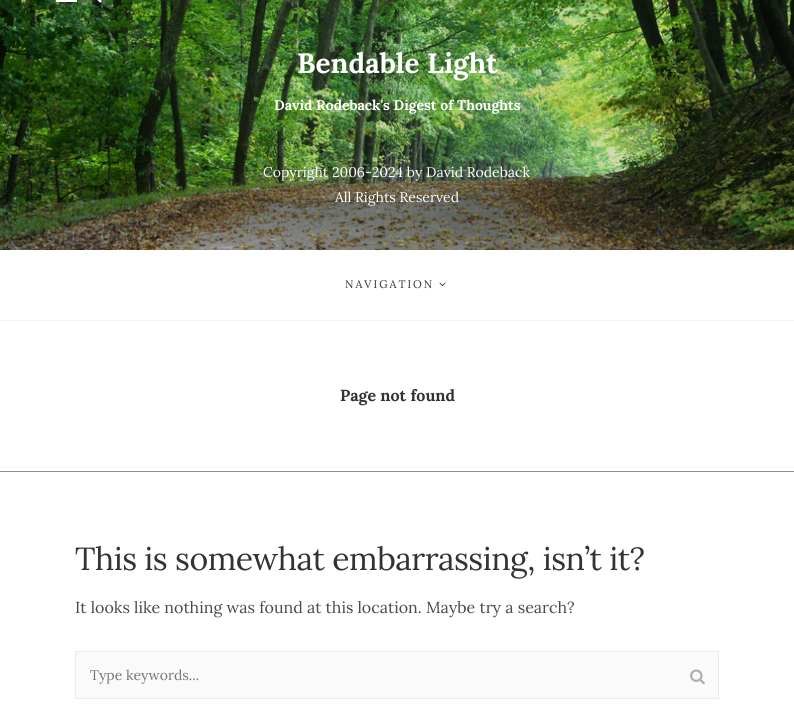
#include <cairo.h>
#include <math.h>
#include <stddef.h>

typedef struct { const char *family; double size; int italic, bold; unsigned color; } style_t;
static cairo_t *ctx;

static void ink(unsigned color) {
    cairo_set_source_rgb(ctx, (color >> 16) / 255.0, (color >> 8 & 255) / 255.0, (color & 255) / 255.0);
}

static void write(double x, double y, const char *s, const style_t *st) {
    cairo_select_font_face(ctx, st->family, st->italic ? CAIRO_FONT_SLANT_ITALIC : CAIRO_FONT_SLANT_NORMAL,
        st->bold ? CAIRO_FONT_WEIGHT_BOLD : CAIRO_FONT_WEIGHT_NORMAL);
    cairo_set_font_size(ctx, st->size);
    ink(st->color);
    cairo_move_to(ctx, x, y);
    cairo_show_text(ctx, s);
}

static void write_spaced(double x, double y, const char *s, double letter, double word) {
    cairo_move_to(ctx, x, y);
    while (*s) {
        char ch[5] = {0};
        int n = 0;
        do ch[n++] = *s++; while ((*s & 0xC0) == 0x80);
        cairo_show_text(ctx, ch);
        cairo_rel_move_to(ctx, letter + word * (*ch == ' '), 0);
    }
}

static void block(double x, double y, double w, double h, unsigned color) {
    ink(color);
    cairo_rectangle(ctx, x, y, w, h);
    cairo_fill(ctx);
}

static void paste(const char *path, double x, double y, double w, double h) {
    cairo_surface_t *image = cairo_image_surface_create_from_png(path);
    cairo_save(ctx);
    cairo_set_source_surface(ctx, image, x, y);
    cairo_rectangle(ctx, x, y, w, h);
    cairo_fill(ctx);
    cairo_restore(ctx);
    cairo_surface_destroy(image);
}

static const style_t s1 = {"Lora", 28, 0, 1, 0xffffff};
static const style_t s2 = {"Lora", 14, 0, 1, 0xffffff};
static const style_t s3 = {"Lora", 14, 0, 0, 0xffffff};
static const style_t s4 = {"Lora", 16, 0, 1, 0x333333};
static const style_t s5 = {"Lora", 16, 0, 0, 0x4a4a4a};
static const style_t s6 = {"Lora", 14, 0, 0, 0x757575};

int main(void) {
    cairo_surface_t *surface = cairo_image_surface_create(CAIRO_FORMAT_RGB24, 794, 706);
    ctx = cairo_create(surface);
    cairo_font_options_t *options = cairo_font_options_create();
    cairo_font_options_set_hint_metrics(options, CAIRO_HINT_METRICS_OFF);
    cairo_font_options_set_hint_style(options, CAIRO_HINT_STYLE_NONE);
    cairo_set_font_options(ctx, options);
    cairo_set_miter_limit(ctx, 4);
    ink(0xffffff);
    cairo_paint(ctx);
    paste("pic1.png", 0, 0, 794, 250);
    block(56, 0, 21, 2, 0xffffff);
    paste("pic2.png", 97, 0, 5, 3);
    write(297, 73, "Bendable Light", &s1);
    write(274, 110, "David Rodeback's Digest of Thoughts", &s2);
    write(263, 177, "Copyright 2006-2024 by David Rodeback", &s3);
    write(335, 202, "All Rights Reserved", &s3);
    block(0, 320, 794, 1, 0xf2f2f2);
    cairo_set_font_size(ctx, 11);
    ink(0x333333);
    write_spaced(345, 288, "NAVIGATION", 2, 0);
    paste("pic3.png", 439, 282, 7, 5);
    block(0, 471, 794, 1, 0x878f96);
    write(340, 401, "Page not found", &s4);
    cairo_select_font_face(ctx, "Lora", CAIRO_FONT_SLANT_NORMAL, CAIRO_FONT_WEIGHT_NORMAL);
    cairo_set_font_size(ctx, 32);
    write_spaced(75, 570, "This is somewhat embarrassing, isn’t it?", -0.5, 0);
    write(75, 613, "It looks like nothing was found at this location. Maybe try a search?", &s5);
    ink(0xfafafa);
    cairo_rectangle(ctx, 75.5, 651.5, 643, 47);
    cairo_fill_preserve(ctx);
    ink(0xeaeaea);
    cairo_set_line_width(ctx, 1);
    cairo_stroke(ctx);
    write(90, 680, "Type keywords...", &s6);
    paste("pic4.png", 690, 669, 15, 16);
    cairo_surface_write_to_png(surface, "screenshot.png");
    cairo_font_options_destroy(options);
    cairo_destroy(ctx);
    cairo_surface_destroy(surface);
    return 0;
}
